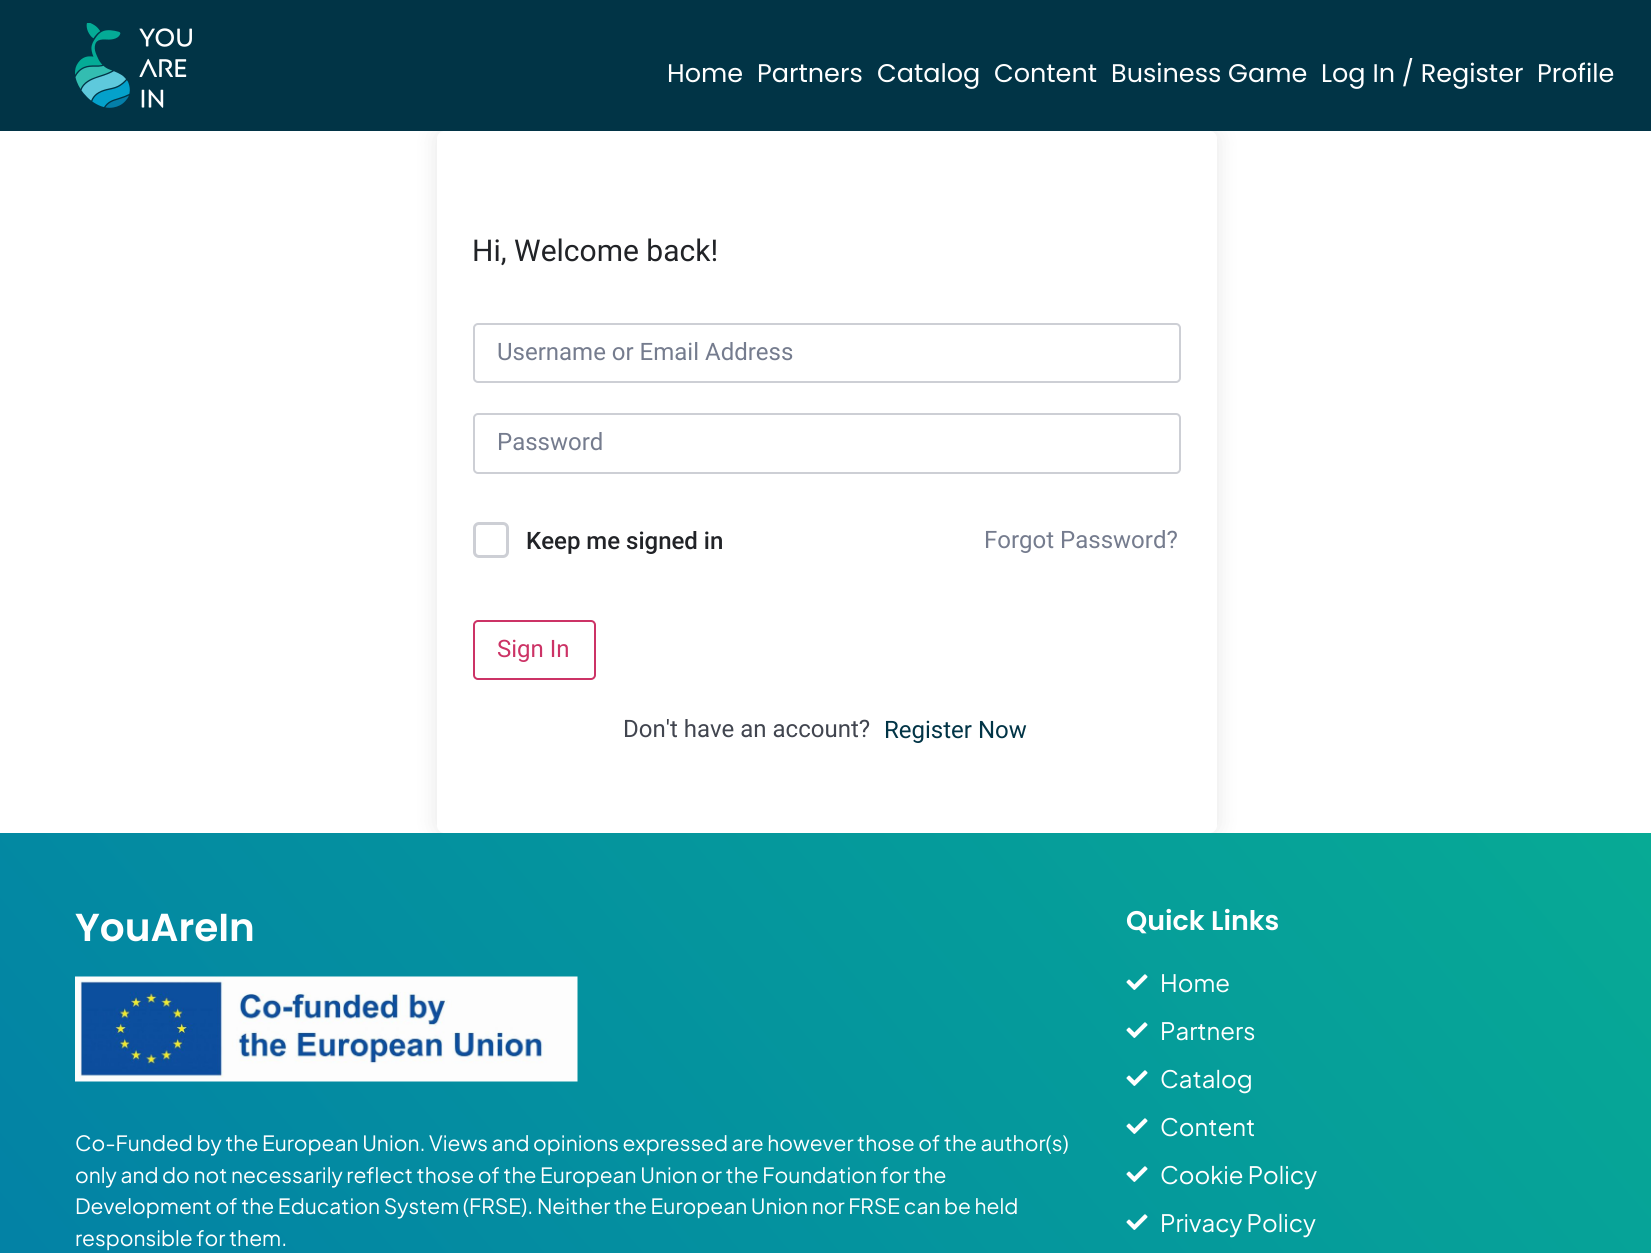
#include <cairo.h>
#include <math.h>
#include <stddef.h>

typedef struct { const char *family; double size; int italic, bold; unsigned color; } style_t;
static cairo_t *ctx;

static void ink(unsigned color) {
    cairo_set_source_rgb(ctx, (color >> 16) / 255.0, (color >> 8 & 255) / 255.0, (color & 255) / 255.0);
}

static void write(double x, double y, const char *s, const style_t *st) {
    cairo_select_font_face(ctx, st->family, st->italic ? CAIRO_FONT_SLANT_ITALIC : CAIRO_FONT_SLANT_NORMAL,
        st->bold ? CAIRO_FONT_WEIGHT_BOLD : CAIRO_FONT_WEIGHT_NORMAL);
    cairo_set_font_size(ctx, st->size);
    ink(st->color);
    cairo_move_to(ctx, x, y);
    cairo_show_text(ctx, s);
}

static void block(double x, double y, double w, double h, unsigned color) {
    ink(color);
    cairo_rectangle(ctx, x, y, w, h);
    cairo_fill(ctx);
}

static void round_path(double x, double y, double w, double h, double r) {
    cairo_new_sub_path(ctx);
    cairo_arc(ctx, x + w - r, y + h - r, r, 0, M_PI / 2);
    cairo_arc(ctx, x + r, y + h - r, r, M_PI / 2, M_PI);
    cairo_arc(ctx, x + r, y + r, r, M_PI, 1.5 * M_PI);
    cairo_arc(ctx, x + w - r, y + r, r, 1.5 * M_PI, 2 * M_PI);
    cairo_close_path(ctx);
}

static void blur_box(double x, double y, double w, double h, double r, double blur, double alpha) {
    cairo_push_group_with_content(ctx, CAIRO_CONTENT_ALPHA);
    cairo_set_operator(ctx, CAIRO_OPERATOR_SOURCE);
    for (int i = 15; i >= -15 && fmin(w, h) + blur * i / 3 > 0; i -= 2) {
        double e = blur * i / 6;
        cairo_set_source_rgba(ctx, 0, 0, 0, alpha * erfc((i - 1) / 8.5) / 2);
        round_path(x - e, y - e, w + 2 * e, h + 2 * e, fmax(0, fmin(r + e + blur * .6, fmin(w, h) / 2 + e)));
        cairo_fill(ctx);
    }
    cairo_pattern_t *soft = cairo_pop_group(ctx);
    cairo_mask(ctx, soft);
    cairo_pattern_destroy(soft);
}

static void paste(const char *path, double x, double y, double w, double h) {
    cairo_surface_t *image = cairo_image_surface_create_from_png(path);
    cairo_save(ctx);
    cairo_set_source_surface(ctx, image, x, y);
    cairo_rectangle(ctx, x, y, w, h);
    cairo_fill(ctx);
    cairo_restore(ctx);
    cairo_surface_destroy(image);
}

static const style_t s1 = {"Poppins", 25.5, 0, 0, 0xffffff};
static const style_t s2 = {"Roboto", 30, 0, 0, 0x212327};
static const style_t s3 = {"Roboto", 24, 0, 0, 0x757c8e};
static const style_t s4 = {"Roboto Medium", 24, 0, 0, 0x212327};
static const style_t s5 = {"Roboto", 24, 0, 0, 0xcc3366};
static const style_t s6 = {"Roboto", 24, 0, 0, 0x41454f};
static const style_t s7 = {"Roboto", 24, 0, 0, 0x013446};
static const style_t s8 = {"Poppins SemiBold", 39, 0, 0, 0xffffff};
static const style_t s9 = {"Plus Jakarta Sans", 21, 0, 0, 0xffffff};
static const style_t s10 = {"Poppins SemiBold", 27, 0, 0, 0xffffff};
static const style_t s11 = {"Plus Jakarta Sans", 24, 0, 0, 0xffffff};

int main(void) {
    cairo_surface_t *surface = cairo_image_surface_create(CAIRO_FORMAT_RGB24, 1651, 1253);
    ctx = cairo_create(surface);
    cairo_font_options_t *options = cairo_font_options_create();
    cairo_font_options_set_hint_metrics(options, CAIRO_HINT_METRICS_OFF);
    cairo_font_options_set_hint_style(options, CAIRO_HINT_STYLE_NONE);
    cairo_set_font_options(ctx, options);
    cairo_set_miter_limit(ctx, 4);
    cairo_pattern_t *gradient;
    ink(0xffffff);
    cairo_paint(ctx);
    cairo_save(ctx);
    cairo_set_fill_rule(ctx, CAIRO_FILL_RULE_EVEN_ODD);
    cairo_new_path(ctx);
    cairo_move_to(ctx, 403, 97);
    cairo_line_to(ctx, 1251, 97);
    cairo_line_to(ctx, 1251, 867);
    cairo_line_to(ctx, 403, 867);
    cairo_close_path(ctx);
    cairo_move_to(ctx, 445, 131);
    cairo_line_to(ctx, 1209, 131);
    cairo_curve_to(ctx, 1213.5, 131, 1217, 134.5, 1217, 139);
    cairo_line_to(ctx, 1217, 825);
    cairo_curve_to(ctx, 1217, 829.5, 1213.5, 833, 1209, 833);
    cairo_line_to(ctx, 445, 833);
    cairo_curve_to(ctx, 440.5, 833, 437, 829.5, 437, 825);
    cairo_line_to(ctx, 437, 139);
    cairo_curve_to(ctx, 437, 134.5, 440.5, 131, 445, 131);
    cairo_close_path(ctx);
    cairo_clip(ctx);
    ink(0x000000);
    blur_box(437, 131, 780, 702, 8, 11, 0.1);
    cairo_restore(ctx);
    block(0, 0, 1651, 131, 0x013446);
    paste("pic1.png", 75, 23, 117, 85);
    write(667, 82, "Home", &s1);
    write(757, 82, "Partners", &s1);
    write(877, 82, "Catalog", &s1);
    write(994, 82, "Content", &s1);
    write(1111, 82, "Business Game", &s1);
    write(1321, 82, "Log In / Register", &s1);
    write(1537, 82, "Profile", &s1);
    write(472, 261, "Hi, Welcome back!", &s2);
    round_path(474, 324, 706, 58, 4);
    ink(0xcdcfd5);
    cairo_stroke(ctx);
    write(497, 360, "Username or Email Address", &s3);
    round_path(474, 414, 706, 59, 4);
    ink(0xcdcfd5);
    cairo_stroke(ctx);
    write(497, 450, "Password", &s3);
    round_path(474.5, 523.5, 33, 33, 4.5);
    ink(0xcdcfd5);
    cairo_set_line_width(ctx, 3);
    cairo_stroke(ctx);
    write(526, 549, "Keep me signed in", &s4);
    write(984, 548, "Forgot Password?", &s3);
    round_path(474, 621, 121, 58, 4);
    ink(0xcc3366);
    cairo_set_line_width(ctx, 2);
    cairo_stroke(ctx);
    write(497, 657, "Sign In", &s5);
    write(623, 737, "Don't have an account?", &s6);
    write(884, 738, "Register Now", &s7);
    gradient = cairo_pattern_create_linear(172, 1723, 1479, 627);
    cairo_pattern_add_color_stop_rgba(gradient, 0, 0.008, 0.49, 0.655, 1);
    cairo_pattern_add_color_stop_rgba(gradient, 1, 0.027, 0.667, 0.584, 1);
    cairo_set_source(ctx, gradient);
    cairo_pattern_destroy(gradient);
    cairo_rectangle(ctx, 0, 833, 1651, 420);
    cairo_fill(ctx);
    write(75, 941, "YouAreIn", &s8);
    paste("pic2.png", 75, 976, 503, 106);
    write(75, 1151, "Co-Funded by the European Union. Views and opinions expressed are however those of the author(s)", &s9);
    write(75, 1183, "only and do not necessarily reflect those of the European Union or the Foundation for the", &s9);
    write(75, 1214, "Development of the Education System (FRSE). Neither the European Union nor FRSE can be held", &s9);
    write(75, 1246, "responsible for them.", &s9);
    write(1126, 930, "Quick Links", &s10);
    paste("pic3.png", 1126, 974, 22, 16);
    write(1160, 992, "Home", &s11);
    paste("pic4.png", 1126, 1022, 22, 16);
    write(1160, 1040, "Partners", &s11);
    paste("pic5.png", 1126, 1070, 22, 16);
    write(1160, 1088, "Catalog", &s11);
    paste("pic6.png", 1126, 1118, 22, 16);
    write(1160, 1136, "Content", &s11);
    paste("pic7.png", 1126, 1166, 22, 16);
    write(1160, 1184, "Cookie Policy", &s11);
    paste("pic8.png", 1126, 1214, 22, 16);
    write(1160, 1232, "Privacy Policy", &s11);
    cairo_surface_write_to_png(surface, "screenshot.png");
    cairo_font_options_destroy(options);
    cairo_destroy(ctx);
    cairo_surface_destroy(surface);
    return 0;
}
